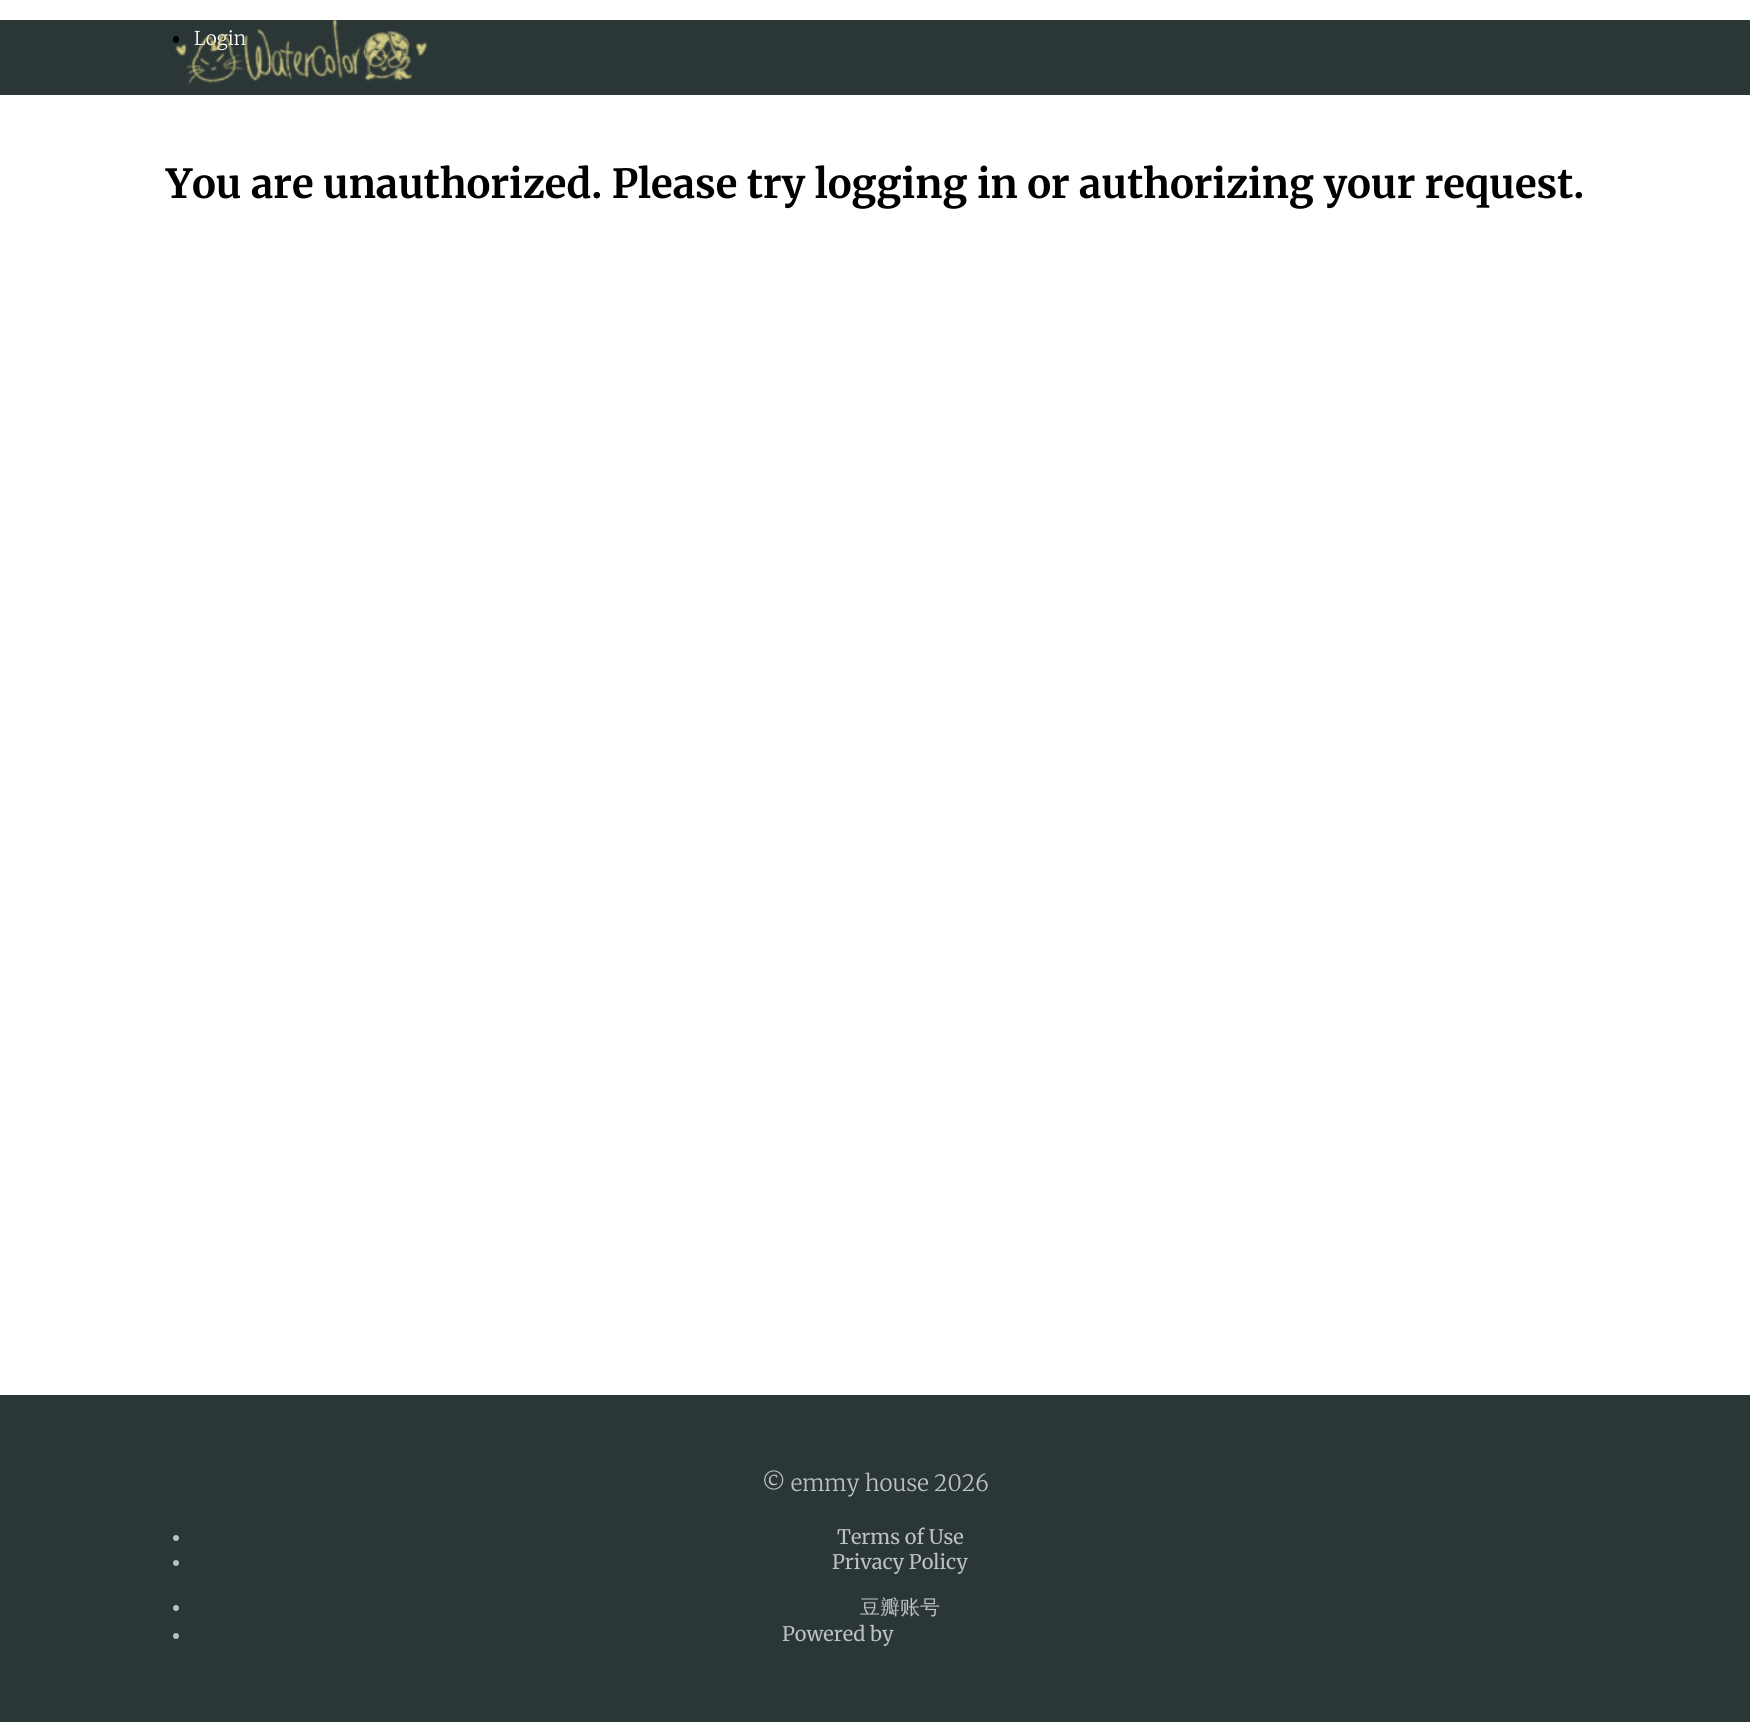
#include <cairo.h>
#include <math.h>
#include <stddef.h>

typedef struct { const char *family; double size; int italic, bold; unsigned color; } style_t;
static cairo_t *ctx;

static void ink(unsigned color) {
    cairo_set_source_rgb(ctx, (color >> 16) / 255.0, (color >> 8 & 255) / 255.0, (color & 255) / 255.0);
}

static void write(double x, double y, const char *s, const style_t *st) {
    cairo_select_font_face(ctx, st->family, st->italic ? CAIRO_FONT_SLANT_ITALIC : CAIRO_FONT_SLANT_NORMAL,
        st->bold ? CAIRO_FONT_WEIGHT_BOLD : CAIRO_FONT_WEIGHT_NORMAL);
    cairo_set_font_size(ctx, st->size);
    ink(st->color);
    cairo_move_to(ctx, x, y);
    cairo_show_text(ctx, s);
}

static void block(double x, double y, double w, double h, unsigned color) {
    ink(color);
    cairo_rectangle(ctx, x, y, w, h);
    cairo_fill(ctx);
}

static void round_path(double x, double y, double w, double h, double r) {
    cairo_new_sub_path(ctx);
    cairo_arc(ctx, x + w - r, y + h - r, r, 0, M_PI / 2);
    cairo_arc(ctx, x + r, y + h - r, r, M_PI / 2, M_PI);
    cairo_arc(ctx, x + r, y + r, r, M_PI, 1.5 * M_PI);
    cairo_arc(ctx, x + w - r, y + r, r, 1.5 * M_PI, 2 * M_PI);
    cairo_close_path(ctx);
}

static void paste(const char *path, double x, double y, double w, double h) {
    cairo_surface_t *image = cairo_image_surface_create_from_png(path);
    cairo_save(ctx);
    cairo_set_source_surface(ctx, image, x, y);
    cairo_rectangle(ctx, x, y, w, h);
    cairo_fill(ctx);
    cairo_restore(ctx);
    cairo_surface_destroy(image);
}

static const style_t s1 = {"Merriweather Light", 19, 0, 0, 0xffffff};
static const style_t s2 = {"Merriweather", 40, 0, 1, 0x000000};
static const style_t s3 = {"Merriweather Light", 22.5, 0, 0, 0xbac1c7};
static const style_t s4 = {"Merriweather", 20, 0, 0, 0xbac1c7};
static const style_t s5 = {"WenQuanYi Zen Hei Medium", 20, 0, 0, 0xbac1c7};

int main(void) {
    cairo_surface_t *surface = cairo_image_surface_create(CAIRO_FORMAT_RGB24, 1750, 1722);
    ctx = cairo_create(surface);
    cairo_font_options_t *options = cairo_font_options_create();
    cairo_font_options_set_hint_metrics(options, CAIRO_HINT_METRICS_OFF);
    cairo_font_options_set_hint_style(options, CAIRO_HINT_STYLE_NONE);
    cairo_set_font_options(ctx, options);
    cairo_set_miter_limit(ctx, 4);
    ink(0xffffff);
    cairo_paint(ctx);
    block(0, 20, 1750, 75, 0x2b3636);
    ink(0x000000);
    round_path(173, 36, 6, 7, 3);
    cairo_fill(ctx);
    write(194, 45, "Login", &s1);
    paste("pic1.png", 175, 20, 253, 65);
    write(166, 198, "You are unauthorized. Please try logging in or authorizing your request.", &s2);
    block(0, 1395, 1750, 327, 0x2b3636);
    write(762, 1491, "© emmy house 2026", &s3);
    cairo_new_path(ctx);
    cairo_arc(ctx, 176, 1538, 3, 0, 2 * M_PI);
    cairo_fill(ctx);
    write(837, 1544, "Terms of Use", &s4);
    cairo_new_path(ctx);
    cairo_arc(ctx, 176, 1563, 3, 0, 2 * M_PI);
    cairo_fill(ctx);
    write(832, 1569, "Privacy Policy", &s4);
    cairo_new_path(ctx);
    cairo_arc(ctx, 176, 1608, 3, 0, 2 * M_PI);
    cairo_fill(ctx);
    write(860, 1614, "豆瓣账号", &s5);
    cairo_new_path(ctx);
    cairo_arc(ctx, 176, 1636, 3, 0, 2 * M_PI);
    cairo_fill(ctx);
    write(782, 1641, "Powered by", &s4);
    cairo_surface_write_to_png(surface, "screenshot.png");
    cairo_font_options_destroy(options);
    cairo_destroy(ctx);
    cairo_surface_destroy(surface);
    return 0;
}
